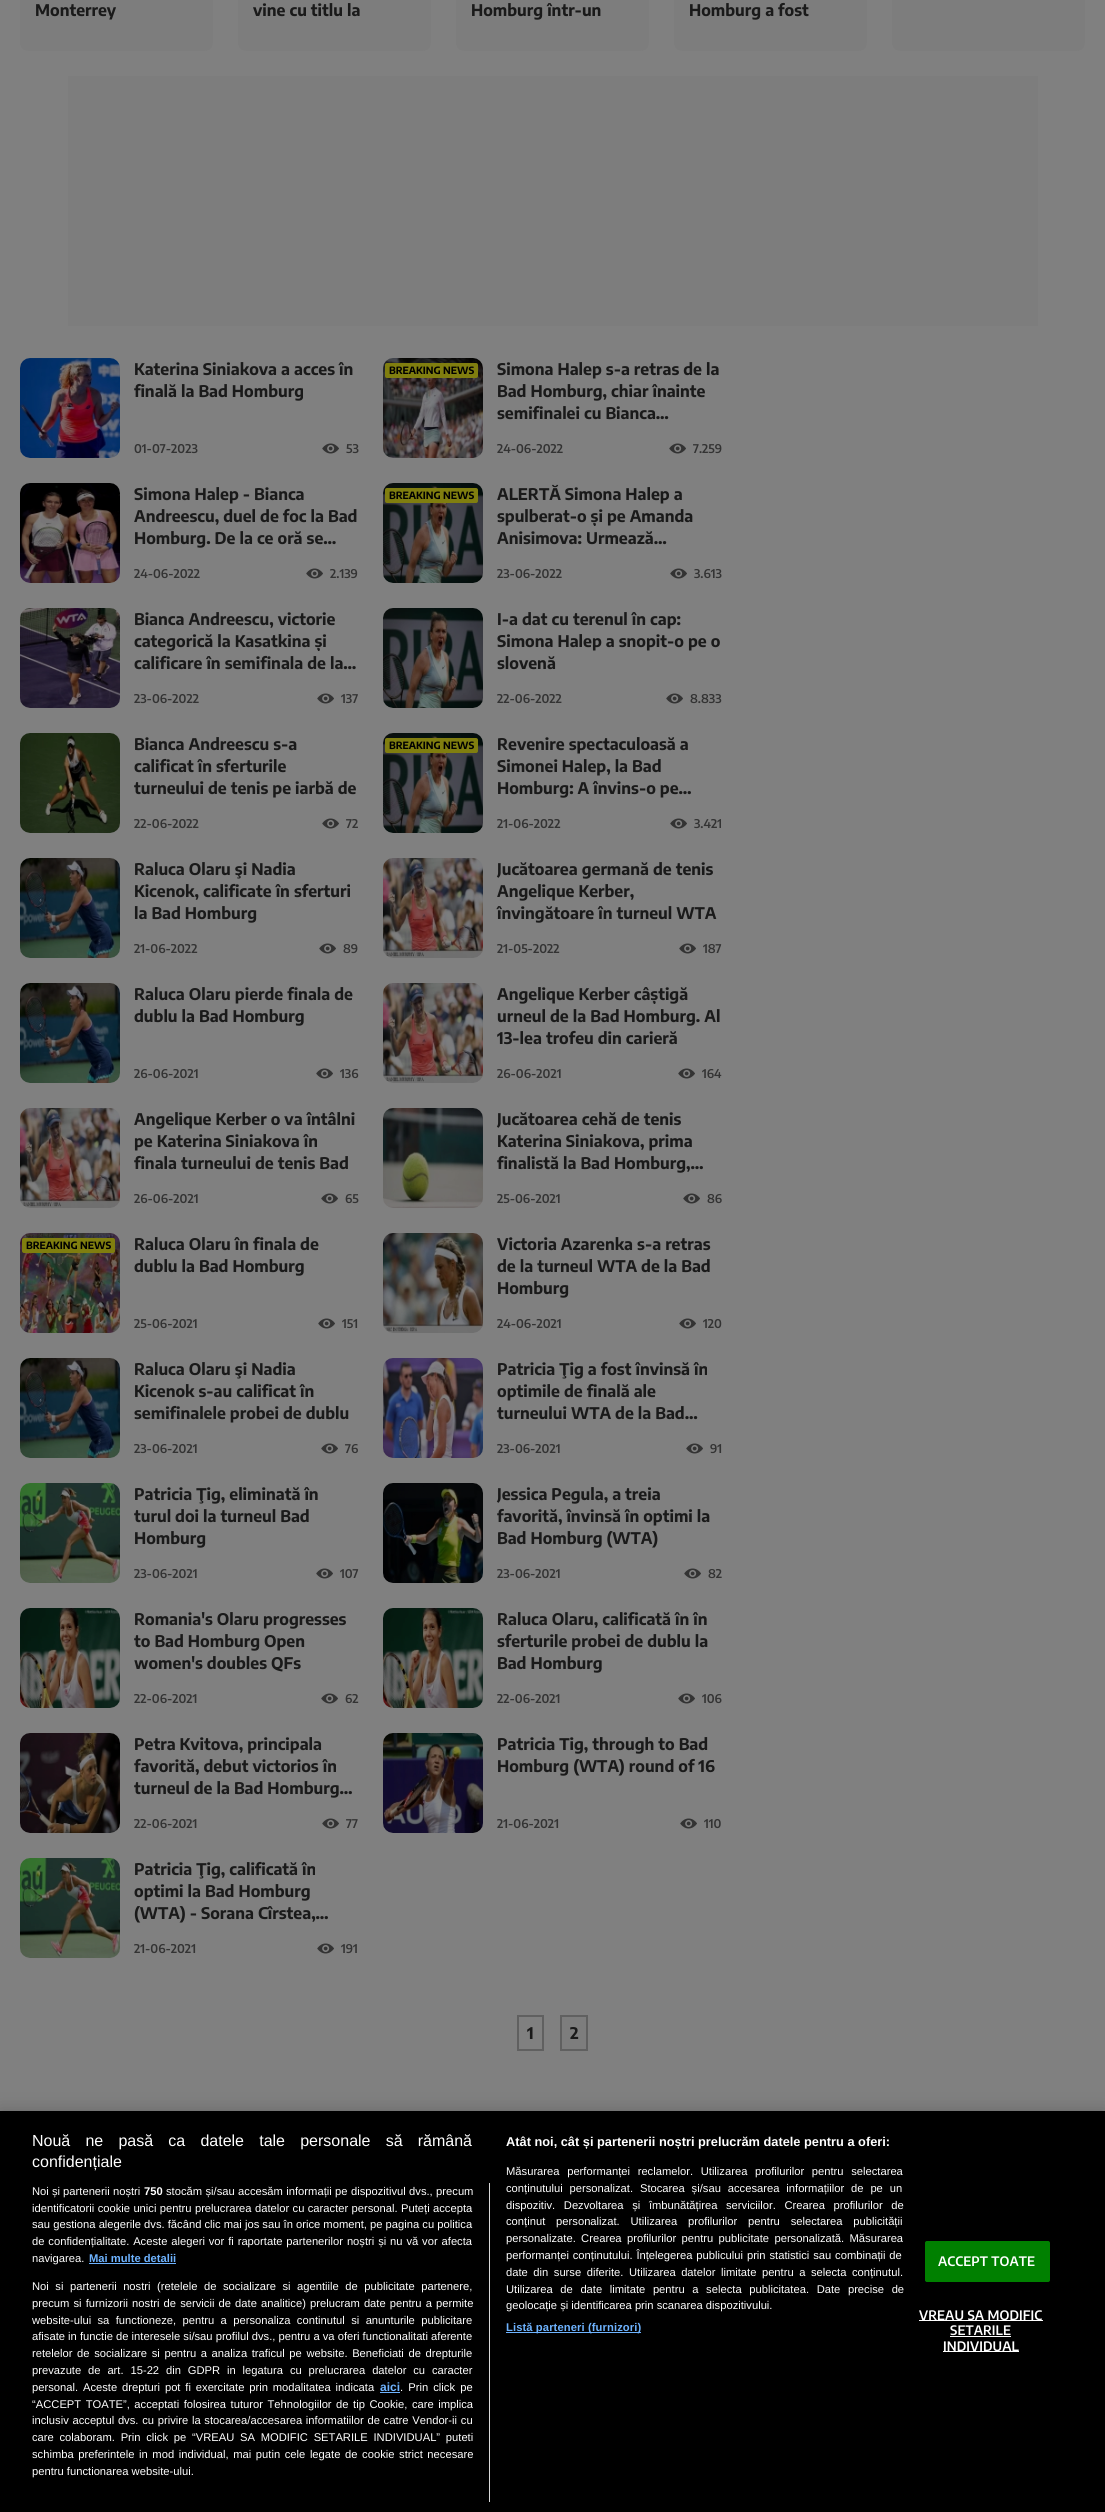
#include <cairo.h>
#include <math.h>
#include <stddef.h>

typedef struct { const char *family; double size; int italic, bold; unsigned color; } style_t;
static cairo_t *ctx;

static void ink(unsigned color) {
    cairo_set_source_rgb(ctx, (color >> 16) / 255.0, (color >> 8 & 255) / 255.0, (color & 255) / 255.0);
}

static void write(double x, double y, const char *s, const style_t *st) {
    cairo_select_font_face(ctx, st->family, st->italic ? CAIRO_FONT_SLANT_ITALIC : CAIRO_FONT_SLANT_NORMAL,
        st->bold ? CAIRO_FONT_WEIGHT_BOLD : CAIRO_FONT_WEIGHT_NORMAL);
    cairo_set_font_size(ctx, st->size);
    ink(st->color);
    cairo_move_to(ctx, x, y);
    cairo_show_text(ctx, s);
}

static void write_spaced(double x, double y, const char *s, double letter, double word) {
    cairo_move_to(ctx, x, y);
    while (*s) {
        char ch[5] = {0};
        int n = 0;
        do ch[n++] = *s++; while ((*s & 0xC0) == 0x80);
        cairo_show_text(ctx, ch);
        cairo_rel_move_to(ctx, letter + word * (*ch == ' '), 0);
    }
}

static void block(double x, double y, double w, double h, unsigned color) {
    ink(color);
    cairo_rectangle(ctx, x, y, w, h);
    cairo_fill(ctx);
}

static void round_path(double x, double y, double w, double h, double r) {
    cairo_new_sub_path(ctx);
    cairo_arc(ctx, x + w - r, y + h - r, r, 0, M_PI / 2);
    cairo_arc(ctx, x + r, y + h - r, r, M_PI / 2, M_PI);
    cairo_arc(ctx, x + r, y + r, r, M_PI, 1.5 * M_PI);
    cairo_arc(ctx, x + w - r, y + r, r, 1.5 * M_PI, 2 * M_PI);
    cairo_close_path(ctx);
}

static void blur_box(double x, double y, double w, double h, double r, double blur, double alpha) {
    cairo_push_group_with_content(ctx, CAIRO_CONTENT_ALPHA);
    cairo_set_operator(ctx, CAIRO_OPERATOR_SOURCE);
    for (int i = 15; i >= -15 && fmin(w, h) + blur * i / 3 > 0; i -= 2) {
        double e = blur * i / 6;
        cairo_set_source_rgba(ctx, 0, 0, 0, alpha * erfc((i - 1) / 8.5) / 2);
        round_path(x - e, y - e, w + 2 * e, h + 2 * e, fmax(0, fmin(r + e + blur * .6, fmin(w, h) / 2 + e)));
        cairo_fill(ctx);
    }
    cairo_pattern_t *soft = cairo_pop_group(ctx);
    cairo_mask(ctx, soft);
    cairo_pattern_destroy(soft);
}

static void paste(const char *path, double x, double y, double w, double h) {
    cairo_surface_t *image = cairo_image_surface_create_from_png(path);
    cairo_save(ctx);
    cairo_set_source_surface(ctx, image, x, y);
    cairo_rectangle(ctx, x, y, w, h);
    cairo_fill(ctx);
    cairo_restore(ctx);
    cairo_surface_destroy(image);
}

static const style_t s1 = {"Encode Sans Condensed", 16, 0, 1, 0x1a1a1a};
static const style_t s2 = {"Encode Sans Condensed SemiBold", 12, 0, 0, 0x333333};
static const style_t s3 = {"Encode Sans Condensed", 10, 0, 1, 0x000000};
static const style_t s4 = {"Liberation Sans", 16, 0, 0, 0xffffff};
static const style_t s5 = {"Liberation Sans", 12.8, 0, 1, 0xffffff};
static const style_t s6 = {"Liberation Sans", 11.2, 0, 0, 0xffffff};
static const style_t s7 = {"Liberation Sans", 11.2, 0, 1, 0xffffff};
static const style_t s8 = {"Liberation Sans", 11.2, 0, 1, 0x6eb3ff};
static const style_t s9 = {"Liberation Sans", 12, 0, 1, 0x6eb3ff};

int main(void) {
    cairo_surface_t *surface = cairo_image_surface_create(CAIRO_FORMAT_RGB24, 1105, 2512);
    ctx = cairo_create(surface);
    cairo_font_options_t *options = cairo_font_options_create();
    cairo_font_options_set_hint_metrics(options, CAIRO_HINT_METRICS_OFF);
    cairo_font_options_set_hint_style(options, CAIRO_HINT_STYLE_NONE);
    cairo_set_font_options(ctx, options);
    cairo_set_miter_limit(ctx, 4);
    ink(0x808080);
    cairo_paint(ctx);
    ink(0x7d7d7d);
    cairo_new_path(ctx);
    cairo_move_to(ctx, 20, -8);
    cairo_line_to(ctx, 213, -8);
    cairo_line_to(ctx, 213, 43);
    cairo_curve_to(ctx, 213, 47.5, 209.5, 51, 205, 51);
    cairo_line_to(ctx, 28, 51);
    cairo_curve_to(ctx, 23.5, 51, 20, 47.5, 20, 43);
    cairo_close_path(ctx);
    cairo_fill(ctx);
    write(35, 16, "Monterrey", &s1);
    ink(0x7d7d7d);
    cairo_new_path(ctx);
    cairo_move_to(ctx, 238, -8);
    cairo_line_to(ctx, 431, -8);
    cairo_line_to(ctx, 431, 43);
    cairo_curve_to(ctx, 431, 47.5, 427.5, 51, 423, 51);
    cairo_line_to(ctx, 246, 51);
    cairo_curve_to(ctx, 241.5, 51, 238, 47.5, 238, 43);
    cairo_close_path(ctx);
    cairo_fill(ctx);
    write(253, 16, "vine cu titlu la", &s1);
    ink(0x7d7d7d);
    cairo_new_path(ctx);
    cairo_move_to(ctx, 456, -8);
    cairo_line_to(ctx, 649, -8);
    cairo_line_to(ctx, 649, 43);
    cairo_curve_to(ctx, 649, 47.5, 645.5, 51, 641, 51);
    cairo_line_to(ctx, 464, 51);
    cairo_curve_to(ctx, 459.5, 51, 456, 47.5, 456, 43);
    cairo_close_path(ctx);
    cairo_fill(ctx);
    write(471, 16, "Homburg într-un", &s1);
    ink(0x7d7d7d);
    cairo_new_path(ctx);
    cairo_move_to(ctx, 674, -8);
    cairo_line_to(ctx, 867, -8);
    cairo_line_to(ctx, 867, 43);
    cairo_curve_to(ctx, 867, 47.5, 863.5, 51, 859, 51);
    cairo_line_to(ctx, 682, 51);
    cairo_curve_to(ctx, 677.5, 51, 674, 47.5, 674, 43);
    cairo_close_path(ctx);
    cairo_fill(ctx);
    write(689, 16, "Homburg a fost", &s1);
    ink(0x7d7d7d);
    cairo_new_path(ctx);
    cairo_move_to(ctx, 892, -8);
    cairo_line_to(ctx, 1085, -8);
    cairo_line_to(ctx, 1085, 43);
    cairo_curve_to(ctx, 1085, 47.5, 1081.5, 51, 1077, 51);
    cairo_line_to(ctx, 900, 51);
    cairo_curve_to(ctx, 895.5, 51, 892, 47.5, 892, 43);
    cairo_close_path(ctx);
    cairo_fill(ctx);
    block(68, 76, 970, 250, 0x7d7d7d);
    paste("pic1.png", 20, 358, 100, 100);
    write(134, 375, "Katerina Siniakova a acces în", &s1);
    write(134, 397, "finală la Bad Homburg", &s1);
    write(134, 453, "01-07-2023", &s2);
    paste("pic2.png", 322, 443, 17, 11);
    write(346, 453, "53", &s2);
    paste("pic3.png", 383, 358, 100, 100);
    ink(0x807e0f);
    round_path(385, 363, 93, 15, 2);
    cairo_fill(ctx);
    write(389, 374, "BREAKING NEWS", &s3);
    write(497, 375, "Simona Halep s-a retras de la", &s1);
    write(497, 397, "Bad Homburg, chiar înainte", &s1);
    write(497, 419, "semifinalei cu Bianca…", &s1);
    write(497, 453, "24-06-2022", &s2);
    paste("pic2.png", 669, 443, 17, 11);
    write(693, 453, "7.259", &s2);
    paste("pic4.png", 20, 483, 100, 100);
    write(134, 500, "Simona Halep - Bianca", &s1);
    write(134, 522, "Andreescu, duel de foc la Bad", &s1);
    write(134, 544, "Homburg. De la ce oră se…", &s1);
    write(134, 578, "24-06-2022", &s2);
    paste("pic2.png", 306, 568, 17, 11);
    write(330, 578, "2.139", &s2);
    paste("pic5.png", 383, 483, 100, 100);
    ink(0x807e0f);
    round_path(385, 488, 93, 15, 2);
    cairo_fill(ctx);
    write(389, 499, "BREAKING NEWS", &s3);
    write(497, 500, "ALERTĂ Simona Halep a", &s1);
    write(497, 522, "spulberat-o și pe Amanda", &s1);
    write(497, 544, "Anisimova: Urmează…", &s1);
    write(497, 578, "23-06-2022", &s2);
    paste("pic2.png", 670, 568, 17, 11);
    write(694, 578, "3.613", &s2);
    paste("pic6.png", 20, 608, 100, 100);
    write(134, 625, "Bianca Andreescu, victorie", &s1);
    write(134, 647, "categorică la Kasatkina și", &s1);
    write(134, 669, "calificare în semifinala de la…", &s1);
    write(134, 703, "23-06-2022", &s2);
    paste("pic2.png", 317, 693, 17, 11);
    write(341, 703, "137", &s2);
    paste("pic5.png", 383, 608, 100, 100);
    write(497, 625, "I-a dat cu terenul în cap:", &s1);
    write(497, 647, "Simona Halep a snopit-o pe o", &s1);
    write(497, 669, "slovenă", &s1);
    write(497, 703, "22-06-2022", &s2);
    paste("pic2.png", 666, 693, 17, 11);
    write(690, 703, "8.833", &s2);
    paste("pic7.png", 20, 733, 100, 100);
    write(134, 750, "Bianca Andreescu s-a", &s1);
    write(134, 772, "calificat în sferturile", &s1);
    write(134, 794, "turneului de tenis pe iarbă de", &s1);
    write(134, 828, "22-06-2022", &s2);
    paste("pic2.png", 322, 818, 17, 11);
    write(346, 828, "72", &s2);
    paste("pic5.png", 383, 733, 100, 100);
    ink(0x807e0f);
    round_path(385, 738, 93, 15, 2);
    cairo_fill(ctx);
    write(389, 749, "BREAKING NEWS", &s3);
    write(497, 750, "Revenire spectaculoasă a", &s1);
    write(497, 772, "Simonei Halep, la Bad", &s1);
    write(497, 794, "Homburg: A învins-o pe…", &s1);
    write(497, 828, "21-06-2022", &s2);
    paste("pic2.png", 670, 818, 17, 11);
    write(694, 828, "3.421", &s2);
    paste("pic8.png", 20, 858, 100, 100);
    write(134, 875, "Raluca Olaru şi Nadia", &s1);
    write(134, 897, "Kicenok, calificate în sferturi", &s1);
    write(134, 919, "la Bad Homburg", &s1);
    write(134, 953, "21-06-2022", &s2);
    paste("pic2.png", 319, 943, 17, 11);
    write(343, 953, "89", &s2);
    paste("pic9.png", 383, 858, 100, 100);
    write(497, 875, "Jucătoarea germană de tenis", &s1);
    write(497, 897, "Angelique Kerber,", &s1);
    write(497, 919, "învingătoare în turneul WTA", &s1);
    write(497, 953, "21-05-2022", &s2);
    paste("pic2.png", 679, 943, 17, 11);
    write(703, 953, "187", &s2);
    paste("pic10.png", 20, 983, 100, 100);
    write(134, 1000, "Raluca Olaru pierde finala de", &s1);
    write(134, 1022, "dublu la Bad Homburg", &s1);
    write(134, 1078, "26-06-2021", &s2);
    paste("pic2.png", 316, 1068, 17, 11);
    write(340, 1078, "136", &s2);
    paste("pic9.png", 383, 983, 100, 100);
    write(497, 1000, "Angelique Kerber câștigă", &s1);
    write(497, 1022, "urneul de la Bad Homburg. Al", &s1);
    write(497, 1044, "13-lea trofeu din carieră", &s1);
    write(497, 1078, "26-06-2021", &s2);
    paste("pic2.png", 678, 1068, 17, 11);
    write(702, 1078, "164", &s2);
    paste("pic11.png", 20, 1108, 100, 100);
    write(134, 1125, "Angelique Kerber o va întâlni", &s1);
    write(134, 1147, "pe Katerina Siniakova în", &s1);
    write(134, 1169, "finala turneului de tenis Bad", &s1);
    write(134, 1203, "26-06-2021", &s2);
    paste("pic2.png", 321, 1193, 17, 11);
    write(345, 1203, "65", &s2);
    paste("pic12.png", 383, 1108, 100, 100);
    write(497, 1125, "Jucătoarea cehă de tenis", &s1);
    write(497, 1147, "Katerina Siniakova, prima", &s1);
    write(497, 1169, "finalistă la Bad Homburg,…", &s1);
    write(497, 1203, "25-06-2021", &s2);
    paste("pic2.png", 683, 1193, 17, 11);
    write(707, 1203, "86", &s2);
    paste("pic13.png", 20, 1233, 100, 100);
    ink(0x807e0f);
    round_path(22, 1238, 93, 15, 2);
    cairo_fill(ctx);
    write(26, 1249, "BREAKING NEWS", &s3);
    write(134, 1250, "Raluca Olaru în finala de", &s1);
    write(134, 1272, "dublu la Bad Homburg", &s1);
    write(134, 1328, "25-06-2021", &s2);
    paste("pic2.png", 318, 1318, 17, 11);
    write(342, 1328, "151", &s2);
    paste("pic14.png", 383, 1233, 100, 100);
    write(497, 1250, "Victoria Azarenka s-a retras", &s1);
    write(497, 1272, "de la turneul WTA de la Bad", &s1);
    write(497, 1294, "Homburg", &s1);
    write(497, 1328, "24-06-2021", &s2);
    paste("pic2.png", 679, 1318, 17, 11);
    write(703, 1328, "120", &s2);
    paste("pic15.png", 20, 1358, 100, 100);
    write(134, 1375, "Raluca Olaru şi Nadia", &s1);
    write(134, 1397, "Kicenok s-au calificat în", &s1);
    write(134, 1419, "semifinalele probei de dublu", &s1);
    write(134, 1453, "23-06-2021", &s2);
    paste("pic2.png", 321, 1443, 17, 11);
    write(345, 1453, "76", &s2);
    paste("pic16.png", 383, 1358, 100, 100);
    write(497, 1375, "Patricia Ţig a fost învinsă în", &s1);
    write(497, 1397, "optimile de finală ale", &s1);
    write(497, 1419, "turneului WTA de la Bad…", &s1);
    write(497, 1453, "23-06-2021", &s2);
    paste("pic2.png", 686, 1443, 17, 11);
    write(710, 1453, "91", &s2);
    paste("pic17.png", 20, 1483, 100, 100);
    write(134, 1500, "Patricia Ţig, eliminată în", &s1);
    write(134, 1522, "turul doi la turneul Bad", &s1);
    write(134, 1544, "Homburg", &s1);
    write(134, 1578, "23-06-2021", &s2);
    paste("pic2.png", 316, 1568, 17, 11);
    write(340, 1578, "107", &s2);
    paste("pic18.png", 383, 1483, 100, 100);
    write(497, 1500, "Jessica Pegula, a treia", &s1);
    write(497, 1522, "favorită, învinsă în optimi la", &s1);
    write(497, 1544, "Bad Homburg (WTA)", &s1);
    write(497, 1578, "23-06-2021", &s2);
    paste("pic2.png", 684, 1568, 17, 11);
    write(708, 1578, "82", &s2);
    paste("pic19.png", 20, 1608, 100, 100);
    write(134, 1625, "Romania's Olaru progresses", &s1);
    write(134, 1647, "to Bad Homburg Open", &s1);
    write(134, 1669, "women's doubles QFs", &s1);
    write(134, 1703, "22-06-2021", &s2);
    paste("pic2.png", 321, 1693, 17, 11);
    write(345, 1703, "62", &s2);
    paste("pic20.png", 383, 1608, 100, 100);
    write(497, 1625, "Raluca Olaru, calificată în în", &s1);
    write(497, 1647, "sferturile probei de dublu la", &s1);
    write(497, 1669, "Bad Homburg", &s1);
    write(497, 1703, "22-06-2021", &s2);
    paste("pic2.png", 678, 1693, 17, 11);
    write(702, 1703, "106", &s2);
    paste("pic21.png", 20, 1733, 100, 100);
    write(134, 1750, "Petra Kvitova, principala", &s1);
    write(134, 1772, "favorită, debut victorios în", &s1);
    write(134, 1794, "turneul de la Bad Homburg…", &s1);
    write(134, 1828, "22-06-2021", &s2);
    paste("pic2.png", 322, 1818, 17, 11);
    write(346, 1828, "77", &s2);
    paste("pic22.png", 383, 1733, 100, 100);
    write(497, 1750, "Patricia Tig, through to Bad", &s1);
    write(497, 1772, "Homburg (WTA) round of 16", &s1);
    write(497, 1828, "21-06-2021", &s2);
    paste("pic2.png", 680, 1818, 17, 11);
    write(704, 1828, "110", &s2);
    paste("pic23.png", 20, 1858, 100, 100);
    write(134, 1875, "Patricia Ţig, calificată în", &s1);
    write(134, 1897, "optimi la Bad Homburg", &s1);
    write(134, 1919, "(WTA) - Sorana Cîrstea,…", &s1);
    write(134, 1953, "21-06-2021", &s2);
    paste("pic2.png", 317, 1943, 17, 11);
    write(341, 1953, "191", &s2);
    cairo_rectangle(ctx, 518, 2016, 25, 34);
    ink(0x606060);
    cairo_stroke(ctx);
    write(527, 2039, "1", &s1);
    ink(0x7d7d7d);
    cairo_rectangle(ctx, 561, 2016, 26, 34);
    cairo_fill_preserve(ctx);
    ink(0x606060);
    cairo_stroke(ctx);
    write(570, 2039, "2", &s1);
    ink(0x000000);
    blur_box(0, 2111, 1105, 401, 0, 9, 0.2);
    block(0, 2111, 1105, 401, 0x000000);
    cairo_select_font_face(ctx, "Liberation Sans", CAIRO_FONT_SLANT_NORMAL, CAIRO_FONT_WEIGHT_NORMAL);
    ink(0xffffff);
    write_spaced(32, 2146, "Nouă ne pasă ca datele tale personale să rămână", 0, 10.75);
    write(32, 2167, "confidențiale", &s4);
    write(506, 2146, "Atât noi, cât și partenerii noștri prelucrăm datele pentru a oferi:", &s5);
    cairo_select_font_face(ctx, "Liberation Sans", CAIRO_FONT_SLANT_NORMAL, CAIRO_FONT_WEIGHT_NORMAL);
    cairo_set_font_size(ctx, 11.2);
    write_spaced(506, 2175, "Măsurarea performanței reclamelor. Utilizarea profilurilor pentru selectarea", 0, 4.5);
    write_spaced(506, 2192, "conținutului personalizat. Stocarea și/sau accesarea informațiilor de pe un", 0, 3.75);
    write_spaced(506, 2209, "dispozitiv. Dezvoltarea și îmbunătățirea serviciilor. Crearea profilurilor de", 0, 5.5);
    write_spaced(506, 2225, "conținut personalizat. Utilizarea profilurilor pentru selectarea publicității", 0, 7.75);
    write_spaced(506, 2242, "personalizate. Crearea profilurilor pentru publicitate personalizată. Măsurarea", 0, 2.25);
    write_spaced(506, 2259, "performanței conținutului. Înțelegerea publicului prin statistici sau combinații de", 0, 0.75);
    write_spaced(506, 2276, "date din surse diferite. Utilizarea datelor limitate pentru a selecta conținutul.", 0, 2.4);
    write_spaced(506, 2293, "Utilizarea de date limitate pentru a selecta publicitatea. Date precise de", 0, 4.5);
    write(506, 2309, "geolocație și identificarea prin scanarea dispozitivului.", &s6);
    block(506, 2332, 135, 1, 0x6eb3ff);
    cairo_select_font_face(ctx, "Liberation Sans", CAIRO_FONT_SLANT_NORMAL, CAIRO_FONT_WEIGHT_BOLD);
    write_spaced(506, 2331, "Listă parteneri (furnizori)", 0.1, 0);
    block(489, 2183, 1, 319, 0xd8d8d8);
    write(32, 2195, "Noi și partenerii noștri", &s6);
    write(144, 2195, "750", &s7);
    cairo_select_font_face(ctx, "Liberation Sans", CAIRO_FONT_SLANT_NORMAL, CAIRO_FONT_WEIGHT_NORMAL);
    write_spaced(166, 2195, "stocăm și/sau accesăm informații pe dispozitivul dvs., precum", 0, 0.25);
    write_spaced(32, 2212, "identificatorii cookie unici pentru prelucrarea datelor cu caracter personal. Puteți accepta", 0, 0.25);
    write(32, 2228, "sau gestiona alegerile dvs. făcând clic mai jos sau în orice moment, pe pagina cu politica", &s6);
    write_spaced(32, 2245, "de confidențialitate. Aceste alegeri vor fi raportate partenerilor noștri și nu vă vor afecta", 0, 0.75);
    write(32, 2262, "navigarea.", &s6);
    write(89, 2262, "Mai multe detalii", &s8);
    block(89, 2263, 87, 1, 0x6eb3ff);
    cairo_select_font_face(ctx, "Liberation Sans", CAIRO_FONT_SLANT_NORMAL, CAIRO_FONT_WEIGHT_NORMAL);
    ink(0xffffff);
    write_spaced(32, 2290, "Noi si partenerii nostri (retelele de socializare si agentiile de publicitate partenere,", 0, 3.4);
    write_spaced(32, 2307, "precum si furnizorii nostri de servicii de date analitice) prelucram date pentru a permite", 0, 1);
    write_spaced(32, 2324, "website-ului sa functioneze, pentru a personaliza continutul si anunturile publicitare", 0, 3.25);
    write(32, 2340, "afisate in functie de interesele si/sau profilul dvs., pentru a va oferi functionalitati aferente", &s6);
    write_spaced(32, 2357, "retelelor de socializare si pentru a analiza traficul pe website. Beneficiati de drepturile", 0, 1.5);
    write_spaced(32, 2374, "prevazute de art. 15-22 din GDPR in legatura cu prelucrarea datelor cu caracter", 0, 3.75);
    write_spaced(32, 2391, "personal. Aceste drepturi pot fi exercitate prin modalitatea indicata", 0, 1.75);
    write(380, 2391, "aici", &s9);
    block(380, 2392, 20, 1, 0x6eb3ff);
    cairo_select_font_face(ctx, "Liberation Sans", CAIRO_FONT_SLANT_NORMAL, CAIRO_FONT_WEIGHT_NORMAL);
    cairo_set_font_size(ctx, 11.2);
    ink(0xffffff);
    write_spaced(400, 2391, ". Prin click pe", 0, 2);
    write_spaced(32, 2408, "“ACCEPT TOATE”, acceptati folosirea tuturor Tehnologiilor de tip Cookie, care implica", 0, 1.4);
    write_spaced(32, 2424, "inclusiv acceptul dvs. cu privire la stocarea/accesarea informatiilor de catre Vendor-ii cu", 0, 0.6);
    write_spaced(32, 2441, "care colaboram. Prin click pe “VREAU SA MODIFIC SETARILE INDIVIDUAL” puteti", 0, 2.6);
    write_spaced(32, 2458, "schimba preferintele in mod individual, mai putin cele legate de cookie strict necesare", 0, 1.5);
    write(32, 2475, "pentru functionarea website-ului.", &s6);
    ink(0x008000);
    round_path(925.5, 2241.5, 124, 40, 1.5);
    cairo_fill_preserve(ctx);
    cairo_set_line_width(ctx, 1);
    cairo_stroke(ctx);
    cairo_select_font_face(ctx, "Encode Sans Condensed SemiBold", CAIRO_FONT_SLANT_NORMAL, CAIRO_FONT_WEIGHT_NORMAL);
    cairo_set_font_size(ctx, 13);
    ink(0xffffff);
    write_spaced(938, 2266, "ACCEPT TOATE", 0.1, 0);
    block(919, 2320, 124, 1, 0xffffff);
    write_spaced(919, 2320, "VREAU SA MODIFIC", 0.1, 0);
    write_spaced(950, 2335, "SETARILE", 0.1, 0);
    block(950, 2336, 61, 1, 0xffffff);
    block(943, 2351, 76, 1, 0xffffff);
    write_spaced(943, 2351, "INDIVIDUAL", 0.1, 0);
    cairo_surface_write_to_png(surface, "screenshot.png");
    cairo_font_options_destroy(options);
    cairo_destroy(ctx);
    cairo_surface_destroy(surface);
    return 0;
}
